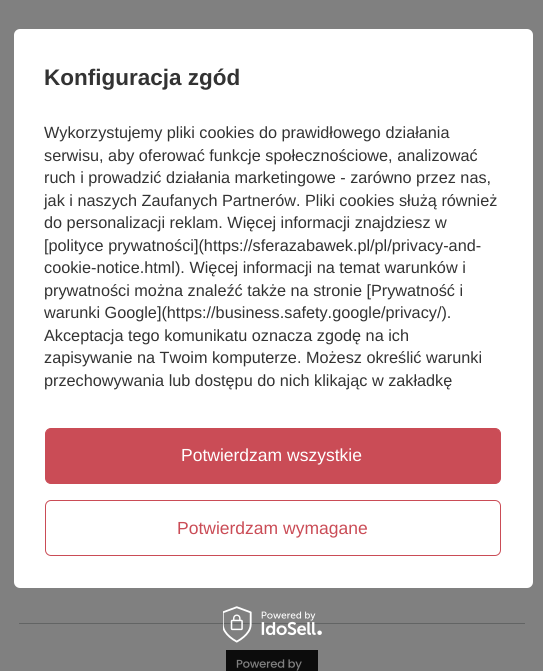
#include <cairo.h>
#include <math.h>
#include <stddef.h>

typedef struct { const char *family; double size; int italic, bold; unsigned color; } style_t;
static cairo_t *ctx;

static void ink(unsigned color) {
    cairo_set_source_rgb(ctx, (color >> 16) / 255.0, (color >> 8 & 255) / 255.0, (color & 255) / 255.0);
}

static void write(double x, double y, const char *s, const style_t *st) {
    cairo_select_font_face(ctx, st->family, st->italic ? CAIRO_FONT_SLANT_ITALIC : CAIRO_FONT_SLANT_NORMAL,
        st->bold ? CAIRO_FONT_WEIGHT_BOLD : CAIRO_FONT_WEIGHT_NORMAL);
    cairo_set_font_size(ctx, st->size);
    ink(st->color);
    cairo_move_to(ctx, x, y);
    cairo_show_text(ctx, s);
}

static void block(double x, double y, double w, double h, unsigned color) {
    ink(color);
    cairo_rectangle(ctx, x, y, w, h);
    cairo_fill(ctx);
}

static void round_path(double x, double y, double w, double h, double r) {
    cairo_new_sub_path(ctx);
    cairo_arc(ctx, x + w - r, y + h - r, r, 0, M_PI / 2);
    cairo_arc(ctx, x + r, y + h - r, r, M_PI / 2, M_PI);
    cairo_arc(ctx, x + r, y + r, r, M_PI, 1.5 * M_PI);
    cairo_arc(ctx, x + w - r, y + r, r, 1.5 * M_PI, 2 * M_PI);
    cairo_close_path(ctx);
}

static void paste(const char *path, double x, double y, double w, double h) {
    cairo_surface_t *image = cairo_image_surface_create_from_png(path);
    cairo_save(ctx);
    cairo_set_source_surface(ctx, image, x, y);
    cairo_rectangle(ctx, x, y, w, h);
    cairo_fill(ctx);
    cairo_restore(ctx);
    cairo_surface_destroy(image);
}

static const style_t s1 = {"Liberation Sans", 22.5, 0, 1, 0x333333};
static const style_t s2 = {"Liberation Sans", 16.25, 0, 0, 0x333333};
static const style_t s3 = {"Liberation Sans", 17.5, 0, 0, 0xffffff};
static const style_t s4 = {"Liberation Sans", 17.5, 0, 0, 0xca4c56};

int main(void) {
    cairo_surface_t *surface = cairo_image_surface_create(CAIRO_FORMAT_RGB24, 543, 671);
    ctx = cairo_create(surface);
    cairo_font_options_t *options = cairo_font_options_create();
    cairo_font_options_set_hint_metrics(options, CAIRO_HINT_METRICS_OFF);
    cairo_font_options_set_hint_style(options, CAIRO_HINT_STYLE_NONE);
    cairo_set_font_options(ctx, options);
    cairo_set_miter_limit(ctx, 4);
    ink(0x808080);
    cairo_paint(ctx);
    ink(0xffffff);
    round_path(14, 29, 519, 559, 6);
    cairo_fill(ctx);
    write(44, 85, "Konfiguracja zgód", &s1);
    write(44, 138, "Wykorzystujemy pliki cookies do prawidłowego działania", &s2);
    write(44, 161, "serwisu, aby oferować funkcje społecznościowe, analizować", &s2);
    write(44, 183, "ruch i prowadzić działania marketingowe - zarówno przez nas,", &s2);
    write(44, 206, "jak i naszych Zaufanych Partnerów. Pliki cookies służą również", &s2);
    write(44, 228, "do personalizacji reklam. Więcej informacji znajdziesz w", &s2);
    write(44, 251, "[polityce prywatności](https://sferazabawek.pl/pl/privacy-and-", &s2);
    write(44, 273, "cookie-notice.html). Więcej informacji na temat warunków i", &s2);
    write(44, 296, "prywatności można znaleźć także na stronie [Prywatność i", &s2);
    write(44, 318, "warunki Google](https://business.safety.google/privacy/).", &s2);
    write(44, 341, "Akceptacja tego komunikatu oznacza zgodę na ich", &s2);
    write(44, 363, "zapisywanie na Twoim komputerze. Możesz określić warunki", &s2);
    write(44, 386, "przechowywania lub dostępu do nich klikając w zakładkę", &s2);
    ink(0xca4c56);
    round_path(45.5, 428.5, 455, 55, 5.5);
    cairo_fill_preserve(ctx);
    cairo_set_line_width(ctx, 1);
    cairo_stroke(ctx);
    write(181, 461, "Potwierdzam wszystkie", &s3);
    round_path(45.5, 500.5, 455, 55, 5.5);
    ink(0xca4c56);
    cairo_stroke(ctx);
    write(177, 534, "Potwierdzam wymagane", &s4);
    block(19, 623, 506, 1, 0x626464);
    paste("pic1.png", 223, 606, 99, 37);
    paste("pic2.png", 226, 650, 92, 21);
    cairo_surface_write_to_png(surface, "screenshot.png");
    cairo_font_options_destroy(options);
    cairo_destroy(ctx);
    cairo_surface_destroy(surface);
    return 0;
}
